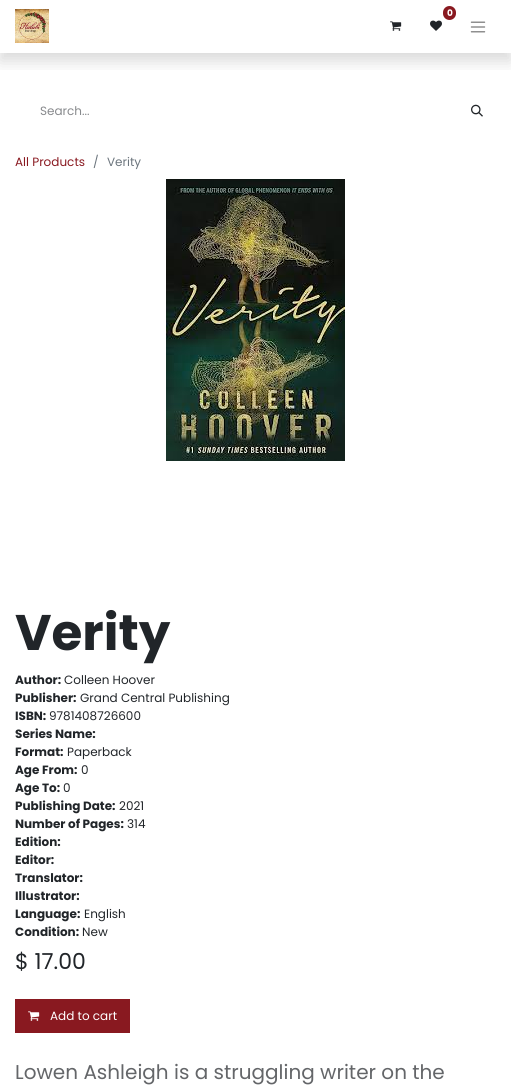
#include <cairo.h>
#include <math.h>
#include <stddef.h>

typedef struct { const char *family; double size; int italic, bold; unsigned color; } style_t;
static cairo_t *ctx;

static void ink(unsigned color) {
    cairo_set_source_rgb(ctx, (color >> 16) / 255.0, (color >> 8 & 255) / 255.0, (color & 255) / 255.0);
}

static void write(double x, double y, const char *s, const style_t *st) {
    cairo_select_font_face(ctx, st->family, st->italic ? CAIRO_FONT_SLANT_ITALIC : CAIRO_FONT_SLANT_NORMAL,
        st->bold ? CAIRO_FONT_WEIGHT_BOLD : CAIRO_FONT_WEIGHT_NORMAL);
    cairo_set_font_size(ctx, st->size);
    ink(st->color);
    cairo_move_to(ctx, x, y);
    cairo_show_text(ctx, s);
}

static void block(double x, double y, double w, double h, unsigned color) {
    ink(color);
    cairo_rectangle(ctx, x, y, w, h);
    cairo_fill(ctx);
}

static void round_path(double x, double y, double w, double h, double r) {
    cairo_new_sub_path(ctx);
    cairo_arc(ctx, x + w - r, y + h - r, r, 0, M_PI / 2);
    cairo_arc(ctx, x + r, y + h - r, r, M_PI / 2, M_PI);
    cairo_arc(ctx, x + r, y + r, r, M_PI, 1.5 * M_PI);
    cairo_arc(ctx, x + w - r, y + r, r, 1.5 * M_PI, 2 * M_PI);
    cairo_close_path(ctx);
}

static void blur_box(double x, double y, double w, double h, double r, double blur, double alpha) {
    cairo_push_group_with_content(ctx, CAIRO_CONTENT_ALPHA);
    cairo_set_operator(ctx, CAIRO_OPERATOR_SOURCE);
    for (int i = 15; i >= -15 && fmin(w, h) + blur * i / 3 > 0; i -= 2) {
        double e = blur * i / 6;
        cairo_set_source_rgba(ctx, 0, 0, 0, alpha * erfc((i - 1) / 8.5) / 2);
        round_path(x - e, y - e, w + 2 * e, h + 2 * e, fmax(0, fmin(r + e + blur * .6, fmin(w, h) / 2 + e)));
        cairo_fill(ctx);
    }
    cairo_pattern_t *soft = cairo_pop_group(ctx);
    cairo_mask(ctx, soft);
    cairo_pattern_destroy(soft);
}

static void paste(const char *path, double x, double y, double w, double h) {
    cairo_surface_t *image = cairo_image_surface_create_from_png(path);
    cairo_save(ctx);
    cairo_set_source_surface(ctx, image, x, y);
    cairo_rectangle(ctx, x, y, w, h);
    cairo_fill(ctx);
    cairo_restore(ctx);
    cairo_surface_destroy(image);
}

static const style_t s1 = {"Poppins", 9, 0, 1, 0xffffff};
static const style_t s2 = {"Poppins", 12, 0, 0, 0x87898c};
static const style_t s3 = {"Poppins", 12, 0, 0, 0x891920};
static const style_t s4 = {"Poppins", 12, 0, 0, 0x6c757d};
static const style_t s5 = {"Poppins", 50, 0, 1, 0x212529};
static const style_t s6 = {"Poppins", 12, 0, 1, 0x212529};
static const style_t s7 = {"Poppins", 12, 0, 0, 0x212529};
static const style_t s8 = {"Poppins", 22, 0, 0, 0x212529};
static const style_t s9 = {"Poppins", 12, 0, 0, 0xffffff};
static const style_t s10 = {"Poppins", 20, 0, 0, 0x646669};

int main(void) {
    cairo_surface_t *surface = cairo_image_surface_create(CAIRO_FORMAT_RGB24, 511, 1087);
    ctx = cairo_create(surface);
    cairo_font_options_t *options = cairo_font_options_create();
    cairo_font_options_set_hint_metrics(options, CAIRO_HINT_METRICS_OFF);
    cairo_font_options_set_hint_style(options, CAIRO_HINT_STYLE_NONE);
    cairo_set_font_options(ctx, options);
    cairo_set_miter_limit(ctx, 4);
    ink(0xffffff);
    cairo_paint(ctx);
    cairo_save(ctx);
    cairo_rectangle(ctx, 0, 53, 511, 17);
    cairo_clip(ctx);
    ink(0x000000);
    blur_box(0, 8, 511, 53, 0, 8, 0.15);
    cairo_restore(ctx);
    paste("pic1.png", 15, 9, 34, 34);
    ink(0x891920);
    round_path(443, 6, 13, 14, 6.5);
    cairo_fill(ctx);
    write(447, 16, "0", &s1);
    paste("pic2.png", 430, 20, 12, 11);
    paste("pic3.png", 390, 21, 12, 10);
    paste("pic4.png", 470, 21, 16, 12);
    write(40, 115, "Search...", &s2);
    paste("pic5.png", 471, 104, 12, 13);
    write(15, 166, "All Products", &s3);
    write(93, 166, "/", &s4);
    write(107, 166, "Verity", &s4);
    paste("pic6.png", 166, 179, 179, 282);
    write(15, 650, "Verity", &s5);
    write(15, 684, "Author:", &s6);
    write(64, 684, "Colleen Hoover", &s7);
    write(15, 702, "Publisher:", &s6);
    write(80, 702, "Grand Central Publishing", &s7);
    write(15, 720, "ISBN:", &s6);
    write(49, 720, "9781408726600", &s7);
    write(15, 738, "Series Name:", &s6);
    write(15, 756, "Format:", &s6);
    write(67, 756, "Paperback", &s7);
    write(15, 774, "Age From:", &s6);
    write(81, 774, "0", &s7);
    write(15, 792, "Age To:", &s6);
    write(63, 792, "0", &s7);
    write(15, 810, "Publishing Date:", &s6);
    write(119, 810, "2021", &s7);
    write(15, 828, "Number of Pages:", &s6);
    write(127, 828, "314", &s7);
    write(15, 846, "Edition:", &s6);
    write(15, 864, "Editor:", &s6);
    write(15, 882, "Translator:", &s6);
    write(15, 900, "Illustrator:", &s6);
    write(15, 918, "Language:", &s6);
    write(84, 918, "English", &s7);
    write(15, 936, "Condition:", &s6);
    write(82, 936, "New", &s7);
    write(15, 969, "$ 17.00", &s8);
    block(15, 999, 115, 34, 0x891920);
    paste("pic7.png", 28, 1011, 12, 10);
    write(50, 1020, "Add to cart", &s9);
    write(15, 1079, "Lowen Ashleigh is a struggling writer on the", &s10);
    cairo_surface_write_to_png(surface, "screenshot.png");
    cairo_font_options_destroy(options);
    cairo_destroy(ctx);
    cairo_surface_destroy(surface);
    return 0;
}
